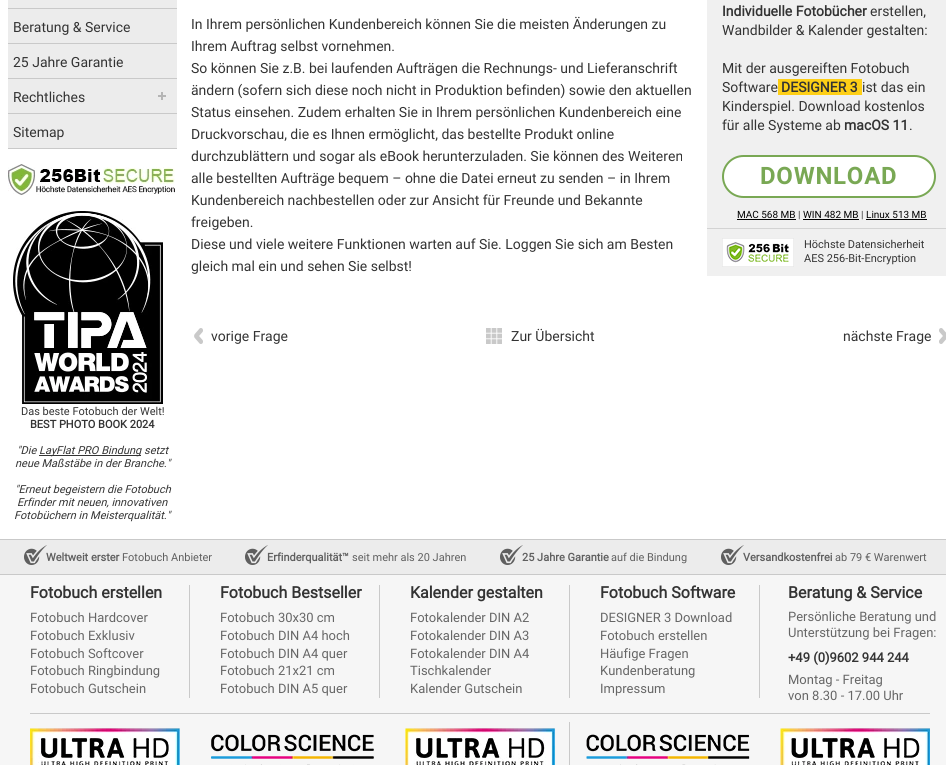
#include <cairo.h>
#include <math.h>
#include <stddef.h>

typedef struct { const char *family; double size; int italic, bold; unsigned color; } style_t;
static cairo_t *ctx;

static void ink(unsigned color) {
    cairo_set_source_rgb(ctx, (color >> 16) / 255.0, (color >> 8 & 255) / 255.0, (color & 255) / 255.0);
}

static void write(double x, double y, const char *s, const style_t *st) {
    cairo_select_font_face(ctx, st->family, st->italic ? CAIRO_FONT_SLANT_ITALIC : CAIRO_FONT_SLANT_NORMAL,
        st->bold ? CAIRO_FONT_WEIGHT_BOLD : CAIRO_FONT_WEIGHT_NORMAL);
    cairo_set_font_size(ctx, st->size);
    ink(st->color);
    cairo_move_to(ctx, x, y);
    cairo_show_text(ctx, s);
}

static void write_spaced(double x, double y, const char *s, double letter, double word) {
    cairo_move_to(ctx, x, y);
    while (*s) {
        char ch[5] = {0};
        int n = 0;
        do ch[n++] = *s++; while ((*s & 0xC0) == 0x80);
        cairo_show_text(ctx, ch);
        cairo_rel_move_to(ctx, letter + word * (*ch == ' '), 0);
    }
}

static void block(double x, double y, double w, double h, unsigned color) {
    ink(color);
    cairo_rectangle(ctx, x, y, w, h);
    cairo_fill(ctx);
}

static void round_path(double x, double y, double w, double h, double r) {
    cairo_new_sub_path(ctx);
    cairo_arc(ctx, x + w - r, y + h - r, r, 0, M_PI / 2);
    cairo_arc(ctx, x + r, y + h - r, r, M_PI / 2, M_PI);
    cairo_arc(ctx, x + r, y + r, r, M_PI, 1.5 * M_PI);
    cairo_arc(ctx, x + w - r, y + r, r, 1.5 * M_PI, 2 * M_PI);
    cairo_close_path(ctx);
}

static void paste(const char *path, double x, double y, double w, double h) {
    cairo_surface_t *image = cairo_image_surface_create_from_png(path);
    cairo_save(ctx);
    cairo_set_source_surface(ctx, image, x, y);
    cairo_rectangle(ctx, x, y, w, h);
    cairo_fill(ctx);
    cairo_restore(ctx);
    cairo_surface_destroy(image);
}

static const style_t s1 = {"Roboto", 14, 0, 0, 0x333333};
static const style_t s2 = {"Roboto", 11, 0, 0, 0x333333};
static const style_t s3 = {"Roboto", 11, 0, 1, 0x333333};
static const style_t s4 = {"Roboto", 11, 1, 0, 0x333333};
static const style_t s5 = {"Roboto", 14, 0, 1, 0x333333};
static const style_t s6 = {"Roboto", 10, 0, 0, 0x000000};
static const style_t s7 = {"Roboto", 10, 0, 0, 0x333333};
static const style_t s8 = {"Roboto", 11, 0, 1, 0x5f5f5f};
static const style_t s9 = {"Roboto", 11, 0, 0, 0x5f5f5f};
static const style_t s10 = {"Roboto", 16, 0, 1, 0x333333};
static const style_t s11 = {"Roboto", 13, 0, 0, 0x666666};
static const style_t s12 = {"Roboto", 13, 0, 1, 0x333333};

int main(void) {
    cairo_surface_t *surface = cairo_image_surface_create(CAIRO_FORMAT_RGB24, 946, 765);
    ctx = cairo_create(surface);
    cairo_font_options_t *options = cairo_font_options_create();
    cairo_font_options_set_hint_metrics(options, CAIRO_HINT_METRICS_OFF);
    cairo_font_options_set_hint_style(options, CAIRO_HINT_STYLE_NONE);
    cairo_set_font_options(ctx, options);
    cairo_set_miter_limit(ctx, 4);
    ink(0xffffff);
    cairo_paint(ctx);
    block(8, 148, 169, 1, 0xc9c9c9);
    block(8, 8, 169, 1, 0xc9c9c9);
    block(8, 0, 169, 8, 0xececec);
    block(8, 43, 169, 1, 0xc9c9c9);
    block(8, 9, 169, 34, 0xececec);
    write(13, 32, "Beratung & Service", &s1);
    block(8, 78, 169, 1, 0xc9c9c9);
    block(8, 44, 169, 34, 0xececec);
    write(13, 67, "25 Jahre Garantie", &s1);
    block(8, 113, 169, 1, 0xc9c9c9);
    block(8, 79, 169, 34, 0xececec);
    paste("pic1.png", 158, 92, 8, 8);
    write(13, 102, "Rechtliches", &s1);
    block(8, 114, 169, 34, 0xececec);
    write(13, 137, "Sitemap", &s1);
    paste("pic2.png", 8, 164, 167, 31);
    paste("pic3.png", 13, 211, 150, 193);
    write(21, 415, "Das beste Fotobuch der Welt!", &s2);
    write(30, 428, "BEST PHOTO BOOK 2024", &s3);
    write(17, 454, "\"Die", &s4);
    block(39, 455, 102, 1, 0x333333);
    write(39, 454, "LayFlat PRO Bindung setzt", &s4);
    write(15, 467, "neue Maßstäbe in der Branche.\"", &s4);
    write(15, 493, "\"Erneut begeistern die Fotobuch", &s4);
    write(17, 506, "Erfinder mit neuen, innovativen", &s4);
    write(14, 519, "Fotobüchern in Meisterqualität.\"", &s4);
    write(191, 29, "In Ihrem persönlichen Kundenbereich können Sie die meisten Änderungen zu", &s1);
    write(191, 51, "Ihrem Auftrag selbst vornehmen.", &s1);
    write(191, 73, "So können Sie z.B. bei laufenden Aufträgen die Rechnungs- und Lieferanschrift", &s1);
    write(191, 95, "ändern (sofern sich diese noch nicht in Produktion befinden) sowie den aktuellen", &s1);
    write(191, 117, "Status einsehen. Zudem erhalten Sie in Ihrem persönlichen Kundenbereich eine", &s1);
    write(191, 139, "Druckvorschau, die es Ihnen ermöglicht, das bestellte Produkt online", &s1);
    write(191, 161, "durchzublättern und sogar als eBook herunterzuladen. Sie können des Weiteren", &s1);
    write(191, 183, "alle bestellten Aufträge bequem – ohne die Datei erneut zu senden – in Ihrem", &s1);
    write(191, 205, "Kundenbereich nachbestellen oder zur Ansicht für Freunde und Bekannte", &s1);
    write(191, 227, "freigeben.", &s1);
    write(191, 249, "Diese und viele weitere Funktionen warten auf Sie. Loggen Sie sich am Besten", &s1);
    write(191, 271, "gleich mal ein und sehen Sie selbst!", &s1);
    block(707, 0, 239, 276, 0xf0f0f0);
    write(722, 16, "Individuelle Fotobücher", &s5);
    write(870, 16, "erstellen,", &s1);
    write(722, 35, "Wandbilder & Kalender gestalten:", &s1);
    write(722, 73, "Mit der ausgereiften Fotobuch", &s1);
    write(722, 92, "Software", &s1);
    block(778, 79, 84, 16, 0xfecf16);
    write(781, 92, "DESIGNER 3", &s5);
    write(862, 92, "ist das ein", &s1);
    write(722, 111, "Kinderspiel. Download kostenlos", &s1);
    write(722, 130, "für alle Systeme ab", &s1);
    write(844, 130, "macOS 11", &s5);
    write(909, 130, ".", &s1);
    ink(0xffffff);
    round_path(723, 156, 212, 41, 20.5);
    cairo_fill_preserve(ctx);
    ink(0x79a854);
    cairo_stroke(ctx);
    cairo_select_font_face(ctx, "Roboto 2", CAIRO_FONT_SLANT_NORMAL, CAIRO_FONT_WEIGHT_BOLD);
    cairo_set_font_size(ctx, 24);
    write_spaced(760, 184, "DOWNLOAD", 0.75, 0);
    write(737, 218, "MAC 568 MB", &s6);
    block(737, 219, 59, 1, 0x000000);
    write(798, 218, "|", &s7);
    write(803, 218, "WIN 482 MB", &s6);
    block(803, 219, 56, 1, 0x000000);
    write(861, 218, "|", &s7);
    write(866, 218, "Linux 513 MB", &s6);
    block(866, 219, 61, 1, 0x000000);
    block(707, 228, 239, 1, 0xd3d3d3);
    paste("pic4.png", 722, 238, 72, 29);
    write(804, 248, "Höchste Datensicherheit", &s2);
    write(804, 262, "AES 256-Bit-Encryption", &s2);
    paste("pic5.png", 194, 328, 9, 16);
    write(211, 341, "vorige Frage", &s1);
    paste("pic6.png", 486, 328, 16, 16);
    write(511, 341, "Zur Übersicht", &s1);
    write(843, 341, "nächste Frage", &s1);
    paste("pic7.png", 939, 328, 7, 16);
    block(0, 575, 946, 190, 0xf6f6f6);
    block(0, 540, 946, 34, 0xececec);
    block(0, 539, 946, 1, 0xc9c9c9);
    block(0, 574, 946, 1, 0xc9c9c9);
    paste("pic8.png", 24, 545, 23, 20);
    write(46, 561, "Weltweit erster", &s8);
    write(122, 561, "Fotobuch Anbieter", &s9);
    paste("pic8.png", 245, 545, 23, 20);
    write(267, 561, "Erfinderqualität™", &s8);
    write(352, 561, "seit mehr als 20 Jahren", &s9);
    paste("pic8.png", 500, 545, 23, 20);
    write(522, 561, "25 Jahre Garantie", &s8);
    write(611, 561, "auf die Bindung", &s9);
    paste("pic8.png", 721, 545, 23, 20);
    write(743, 561, "Versandkostenfrei", &s8);
    write(835, 561, "ab 79 € Warenwert", &s9);
    block(189, 585, 1, 113, 0xc9c9c9);
    write(30, 598, "Fotobuch erstellen", &s10);
    write(30, 622, "Fotobuch Hardcover", &s11);
    write(30, 640, "Fotobuch Exklusiv", &s11);
    write(30, 658, "Fotobuch Softcover", &s11);
    write(30, 675, "Fotobuch Ringbindung", &s11);
    write(30, 693, "Fotobuch Gutschein", &s11);
    block(379, 585, 1, 113, 0xc9c9c9);
    write(220, 598, "Fotobuch Bestseller", &s10);
    write(220, 622, "Fotobuch 30x30 cm", &s11);
    write(220, 640, "Fotobuch DIN A4 hoch", &s11);
    write(220, 658, "Fotobuch DIN A4 quer", &s11);
    write(220, 675, "Fotobuch 21x21 cm", &s11);
    write(220, 693, "Fotobuch DIN A5 quer", &s11);
    block(569, 585, 1, 113, 0xc9c9c9);
    write(410, 598, "Kalender gestalten", &s10);
    write(410, 622, "Fotokalender DIN A2", &s11);
    write(410, 640, "Fotokalender DIN A3", &s11);
    write(410, 658, "Fotokalender DIN A4", &s11);
    write(410, 675, "Tischkalender", &s11);
    write(410, 693, "Kalender Gutschein", &s11);
    block(759, 585, 1, 113, 0xc9c9c9);
    write(600, 598, "Fotobuch Software", &s10);
    write(600, 622, "DESIGNER 3 Download", &s11);
    write(600, 640, "Fotobuch erstellen", &s11);
    write(600, 658, "Häufige Fragen", &s11);
    write(600, 675, "Kundenberatung", &s11);
    write(600, 693, "Impressum", &s11);
    write(788, 598, "Beratung & Service", &s10);
    write(788, 621, "Persönliche Beratung und", &s11);
    write(788, 637, "Unterstützung bei Fragen:", &s11);
    write(788, 662, "+49 (0)9602 944 244", &s12);
    write(788, 684, "Montag - Freitag", &s11);
    write(788, 700, "von 8.30 - 17.00 Uhr", &s11);
    block(30, 713, 900, 1, 0xc9c9c9);
    block(569, 722, 1, 43, 0xc9c9c9);
    paste("pic9.png", 30, 728, 900, 37);
    cairo_surface_write_to_png(surface, "screenshot.png");
    cairo_font_options_destroy(options);
    cairo_destroy(ctx);
    cairo_surface_destroy(surface);
    return 0;
}
